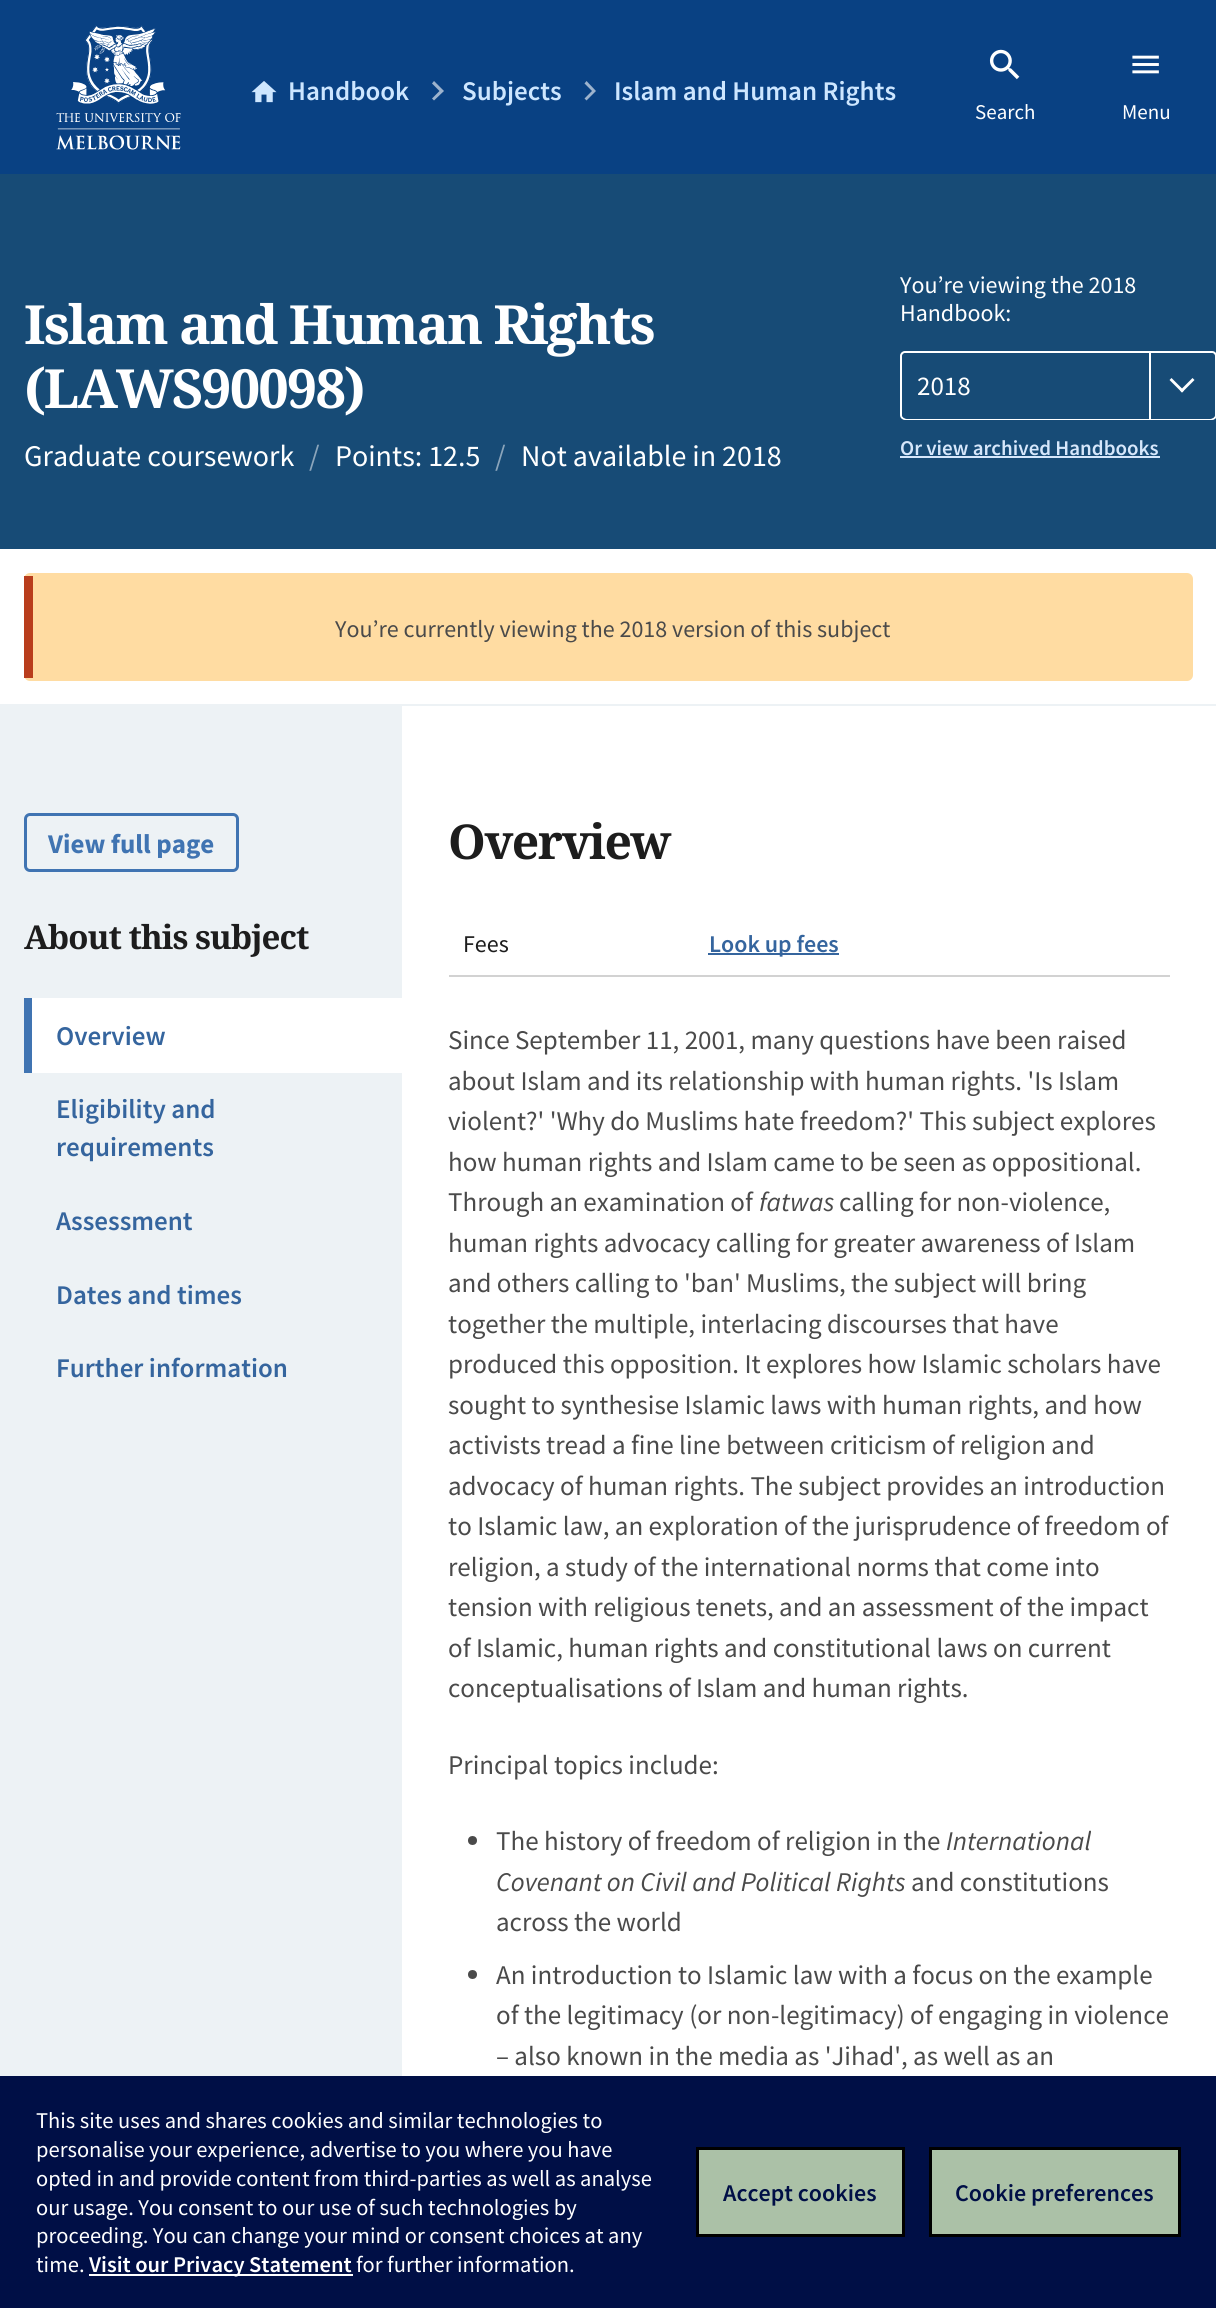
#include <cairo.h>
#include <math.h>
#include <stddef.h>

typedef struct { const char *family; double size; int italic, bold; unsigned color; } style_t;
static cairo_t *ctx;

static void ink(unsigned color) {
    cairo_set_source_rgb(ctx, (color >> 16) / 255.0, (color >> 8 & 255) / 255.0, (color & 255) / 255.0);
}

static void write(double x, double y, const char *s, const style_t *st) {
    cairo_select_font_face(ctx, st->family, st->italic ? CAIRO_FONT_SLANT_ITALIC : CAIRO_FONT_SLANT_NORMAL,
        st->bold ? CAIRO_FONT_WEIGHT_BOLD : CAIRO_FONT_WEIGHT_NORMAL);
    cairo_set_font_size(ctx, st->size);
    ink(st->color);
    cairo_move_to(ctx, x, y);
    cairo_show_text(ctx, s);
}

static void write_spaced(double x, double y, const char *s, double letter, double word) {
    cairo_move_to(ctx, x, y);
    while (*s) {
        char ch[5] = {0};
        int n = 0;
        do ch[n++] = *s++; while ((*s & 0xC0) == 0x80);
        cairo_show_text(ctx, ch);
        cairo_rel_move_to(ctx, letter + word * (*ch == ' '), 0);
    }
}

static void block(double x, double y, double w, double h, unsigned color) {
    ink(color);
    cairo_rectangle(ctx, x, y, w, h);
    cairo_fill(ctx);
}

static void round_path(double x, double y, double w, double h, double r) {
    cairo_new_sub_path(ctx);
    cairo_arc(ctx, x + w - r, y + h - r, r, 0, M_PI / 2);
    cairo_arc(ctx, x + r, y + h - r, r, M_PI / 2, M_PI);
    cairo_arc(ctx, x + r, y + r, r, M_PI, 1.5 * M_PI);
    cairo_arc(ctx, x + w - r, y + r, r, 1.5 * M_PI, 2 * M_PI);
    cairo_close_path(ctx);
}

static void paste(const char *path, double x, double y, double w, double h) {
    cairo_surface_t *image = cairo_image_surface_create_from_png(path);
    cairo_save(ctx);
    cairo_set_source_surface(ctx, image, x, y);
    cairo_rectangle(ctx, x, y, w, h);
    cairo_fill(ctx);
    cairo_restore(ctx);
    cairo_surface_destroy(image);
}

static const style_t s1 = {"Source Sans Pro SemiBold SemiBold", 27, 0, 0, 0xcde6ff};
static const style_t s2 = {"Source Sans Pro", 21, 0, 0, 0xffffff};
static const style_t s3 = {"Source Sans Pro", 30, 0, 0, 0xffffff};
static const style_t s4 = {"Source Sans Pro", 30, 0, 0, 0x8ba5bb};
static const style_t s5 = {"Source Sans Pro", 24, 0, 0, 0xffffff};
static const style_t s6 = {"Source Sans Pro", 27, 0, 0, 0xffffff};
static const style_t s7 = {"Source Sans Pro SemiBold SemiBold", 21, 0, 0, 0xd6e7fb};
static const style_t s8 = {"Source Sans Pro", 24, 0, 0, 0x4a4a4a};
static const style_t s9 = {"Source Sans Pro", 27, 0, 1, 0x4074b2};
static const style_t s10 = {"Source Sans Pro SemiBold SemiBold", 27, 0, 0, 0x35659e};
static const style_t s11 = {"Source Sans Pro", 24, 0, 0, 0x1d1d1d};
static const style_t s12 = {"Source Sans Pro SemiBold SemiBold", 24, 0, 0, 0x35659e};
static const style_t s13 = {"Source Sans Pro", 27, 0, 0, 0x4a4a4a};
static const style_t s14 = {"Source Sans Pro", 27, 1, 0, 0x4a4a4a};
static const style_t s15 = {"Source Sans Pro", 22.5, 0, 0, 0xffffff};
static const style_t s16 = {"Source Sans Pro SemiBold SemiBold", 22.5, 0, 0, 0xffffff};
static const style_t s17 = {"Source Sans Pro SemiBold SemiBold", 24, 0, 0, 0x000f46};

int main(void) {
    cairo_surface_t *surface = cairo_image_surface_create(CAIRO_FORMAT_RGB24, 1216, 2308);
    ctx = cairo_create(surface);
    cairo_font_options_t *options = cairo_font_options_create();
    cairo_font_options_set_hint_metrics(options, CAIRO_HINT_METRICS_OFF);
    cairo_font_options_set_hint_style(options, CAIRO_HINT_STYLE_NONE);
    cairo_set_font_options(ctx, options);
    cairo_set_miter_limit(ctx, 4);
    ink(0xffffff);
    cairo_paint(ctx);
    block(0, 0, 1216, 174, 0x094183);
    paste("pic1.png", 56, 25, 125, 125);
    paste("pic2.png", 251, 81, 26, 22);
    write(288, 100, "Handbook", &s1);
    ink(0x9db3cd);
    cairo_new_path(ctx);
    cairo_move_to(ctx, 434, 81);
    cairo_line_to(ctx, 444, 91);
    cairo_line_to(ctx, 439.5, 91);
    cairo_line_to(ctx, 432, 83.5);
    cairo_close_path(ctx);
    cairo_move_to(ctx, 444, 91);
    cairo_line_to(ctx, 434, 100.5);
    cairo_line_to(ctx, 432, 98.5);
    cairo_line_to(ctx, 439.5, 91);
    cairo_close_path(ctx);
    cairo_fill(ctx);
    write(462, 100, "Subjects", &s1);
    ink(0x9db3cd);
    cairo_new_path(ctx);
    cairo_move_to(ctx, 586.5, 81);
    cairo_line_to(ctx, 596, 91);
    cairo_line_to(ctx, 592, 91);
    cairo_line_to(ctx, 584.5, 83.5);
    cairo_close_path(ctx);
    cairo_move_to(ctx, 596, 91);
    cairo_line_to(ctx, 586.5, 100.5);
    cairo_line_to(ctx, 584.5, 98.5);
    cairo_line_to(ctx, 592, 91);
    cairo_close_path(ctx);
    cairo_fill(ctx);
    write(614, 100, "Islam and Human Rights", &s1);
    paste("pic3.png", 989, 49, 31, 31);
    write(975, 119, "Search", &s2);
    paste("pic4.png", 1132, 55, 27, 19);
    write(1122, 119, "Menu", &s2);
    block(0, 174, 1216, 375, 0x174b76);
    cairo_select_font_face(ctx, "Noto Serif", CAIRO_FONT_SLANT_NORMAL, CAIRO_FONT_WEIGHT_BOLD);
    cairo_set_font_size(ctx, 54);
    ink(0xffffff);
    write_spaced(24, 344, "Islam and Human Rights", -1.9, 0);
    write_spaced(24, 408, "(LAWS90098)", -1.9, 0);
    write(24, 466, "Graduate coursework", &s3);
    write(309, 466, "/", &s4);
    write(335, 466, "Points: 12.5", &s3);
    write(495, 466, "/", &s4);
    write(521, 466, "Not available in 2018", &s3);
    write(900, 293, "You’re viewing the 2018", &s5);
    write(900, 321, "Handbook:", &s5);
    round_path(901, 352, 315, 67, 4);
    cairo_stroke(ctx);
    ink(0x174b76);
    round_path(902, 353, 313, 66, 5);
    cairo_fill(ctx);
    write(917, 395, "2018", &s6);
    block(1149, 353, 2, 66, 0xffffff);
    cairo_new_path(ctx);
    cairo_move_to(ctx, 1192.5, 378);
    cairo_line_to(ctx, 1194.5, 380);
    cairo_line_to(ctx, 1182, 392.5);
    cairo_line_to(ctx, 1180, 390.5);
    cairo_close_path(ctx);
    cairo_fill(ctx);
    cairo_new_path(ctx);
    cairo_move_to(ctx, 1171.5, 378);
    cairo_line_to(ctx, 1184, 390.5);
    cairo_line_to(ctx, 1182, 392.5);
    cairo_line_to(ctx, 1169.5, 380);
    cairo_close_path(ctx);
    cairo_fill(ctx);
    write(900, 455, "Or view archived Handbooks", &s7);
    block(900, 456, 260, 2, 0xd6e7fb);
    ink(0xffdca2);
    round_path(24, 573, 1169, 108, 6);
    cairo_fill(ctx);
    block(24, 576, 9, 102, 0xb93d1c);
    write(335, 637, "You’re currently viewing the 2018 version of this subject", &s8);
    block(0, 704, 1216, 2, 0xedf2f5);
    block(0, 706, 402, 1370, 0xedf2f5);
    round_path(25.5, 814.5, 212, 56, 4.5);
    ink(0x4074b2);
    cairo_set_line_width(ctx, 3);
    cairo_stroke(ctx);
    write(48, 853, "View full page", &s9);
    cairo_select_font_face(ctx, "Noto Serif", CAIRO_FONT_SLANT_NORMAL, CAIRO_FONT_WEIGHT_BOLD);
    cairo_set_font_size(ctx, 33);
    ink(0x1d1d1d);
    write_spaced(24, 949, "About this subject", -1, 0);
    block(32, 998, 370, 75, 0xffffff);
    block(24, 998, 8, 75, 0x4074b2);
    write(56, 1045, "Overview", &s10);
    write(56, 1118, "Eligibility and", &s10);
    write(56, 1156, "requirements", &s10);
    write(56, 1230, "Assessment", &s10);
    write(56, 1304, "Dates and times", &s10);
    write(56, 1377, "Further information", &s10);
    cairo_select_font_face(ctx, "Noto Serif", CAIRO_FONT_SLANT_NORMAL, CAIRO_FONT_WEIGHT_BOLD);
    cairo_set_font_size(ctx, 48);
    ink(0x1d1d1d);
    write_spaced(448, 859, "Overview", -1.5, 0);
    block(449, 975, 721, 2, 0xd2d2d2);
    write(463, 952, "Fees", &s11);
    block(708, 953, 131, 2, 0x35659e);
    write(709, 952, "Look up fees", &s12);
    write(448, 1049, "Since September 11, 2001, many questions have been raised", &s13);
    write(448, 1090, "about Islam and its relationship with human rights. 'Is Islam", &s13);
    write(448, 1130, "violent?' 'Why do Muslims hate freedom?' This subject explores", &s13);
    write(448, 1171, "how human rights and Islam came to be seen as oppositional.", &s13);
    write(448, 1211, "Through an examination of", &s13);
    write(759, 1211, "fatwas", &s14);
    write(839, 1211, "calling for non-violence,", &s13);
    write(448, 1252, "human rights advocacy calling for greater awareness of Islam", &s13);
    write(448, 1292, "and others calling to 'ban' Muslims, the subject will bring", &s13);
    write(448, 1333, "together the multiple, interlacing discourses that have", &s13);
    write(448, 1373, "produced this opposition. It explores how Islamic scholars have", &s13);
    write(448, 1414, "sought to synthesise Islamic laws with human rights, and how", &s13);
    write(448, 1454, "activists tread a fine line between criticism of religion and", &s13);
    write(448, 1495, "advocacy of human rights. The subject provides an introduction", &s13);
    write(448, 1535, "to Islamic law, an exploration of the jurisprudence of freedom of", &s13);
    write(448, 1576, "religion, a study of the international norms that come into", &s13);
    write(448, 1616, "tension with religious tenets, and an assessment of the impact", &s13);
    write(448, 1657, "of Islamic, human rights and constitutional laws on current", &s13);
    write(448, 1697, "conceptualisations of Islam and human rights.", &s13);
    write(448, 1774, "Principal topics include:", &s13);
    cairo_new_path(ctx);
    cairo_arc(ctx, 472.5, 1840.5, 4.5, 0, 2 * M_PI);
    cairo_fill(ctx);
    write(496, 1850, "The history of freedom of religion in the", &s13);
    write(946, 1850, "International", &s14);
    write(496, 1891, "Covenant on Civil and Political Rights", &s14);
    write(911, 1891, "and constitutions", &s13);
    write(496, 1931, "across the world", &s13);
    cairo_new_path(ctx);
    cairo_arc(ctx, 472.5, 1974.5, 4.5, 0, 2 * M_PI);
    cairo_fill(ctx);
    write(496, 1984, "An introduction to Islamic law with a focus on the example", &s13);
    write(496, 2024, "of the legitimacy (or non-legitimacy) of engaging in violence", &s13);
    write(496, 2065, "– also known in the media as 'Jihad', as well as an", &s13);
    block(0, 2076, 1216, 232, 0x000f46);
    write(36, 2128, "This site uses and shares cookies and similar technologies to", &s15);
    write(36, 2157, "personalise your experience, advertise to you where you have", &s15);
    write(36, 2186, "opted in and provide content from third-parties as well as analyse", &s15);
    write(36, 2215, "our usage. You consent to our use of such technologies by", &s15);
    write(36, 2243, "proceeding. You can change your mind or consent choices at any", &s15);
    write(36, 2272, "time.", &s15);
    block(89, 2274, 264, 2, 0xffffff);
    write(89, 2272, "Visit our Privacy Statement", &s16);
    write(356, 2272, "for further information.", &s15);
    ink(0xabc1a7);
    cairo_rectangle(ctx, 697.5, 2148.5, 206, 87);
    cairo_fill_preserve(ctx);
    ink(0x000000);
    cairo_stroke(ctx);
    write(723, 2201, "Accept cookies", &s17);
    ink(0xabc1a7);
    cairo_rectangle(ctx, 930.5, 2148.5, 249, 87);
    cairo_fill_preserve(ctx);
    ink(0x000000);
    cairo_stroke(ctx);
    write(955, 2201, "Cookie preferences", &s17);
    cairo_surface_write_to_png(surface, "screenshot.png");
    cairo_font_options_destroy(options);
    cairo_destroy(ctx);
    cairo_surface_destroy(surface);
    return 0;
}
